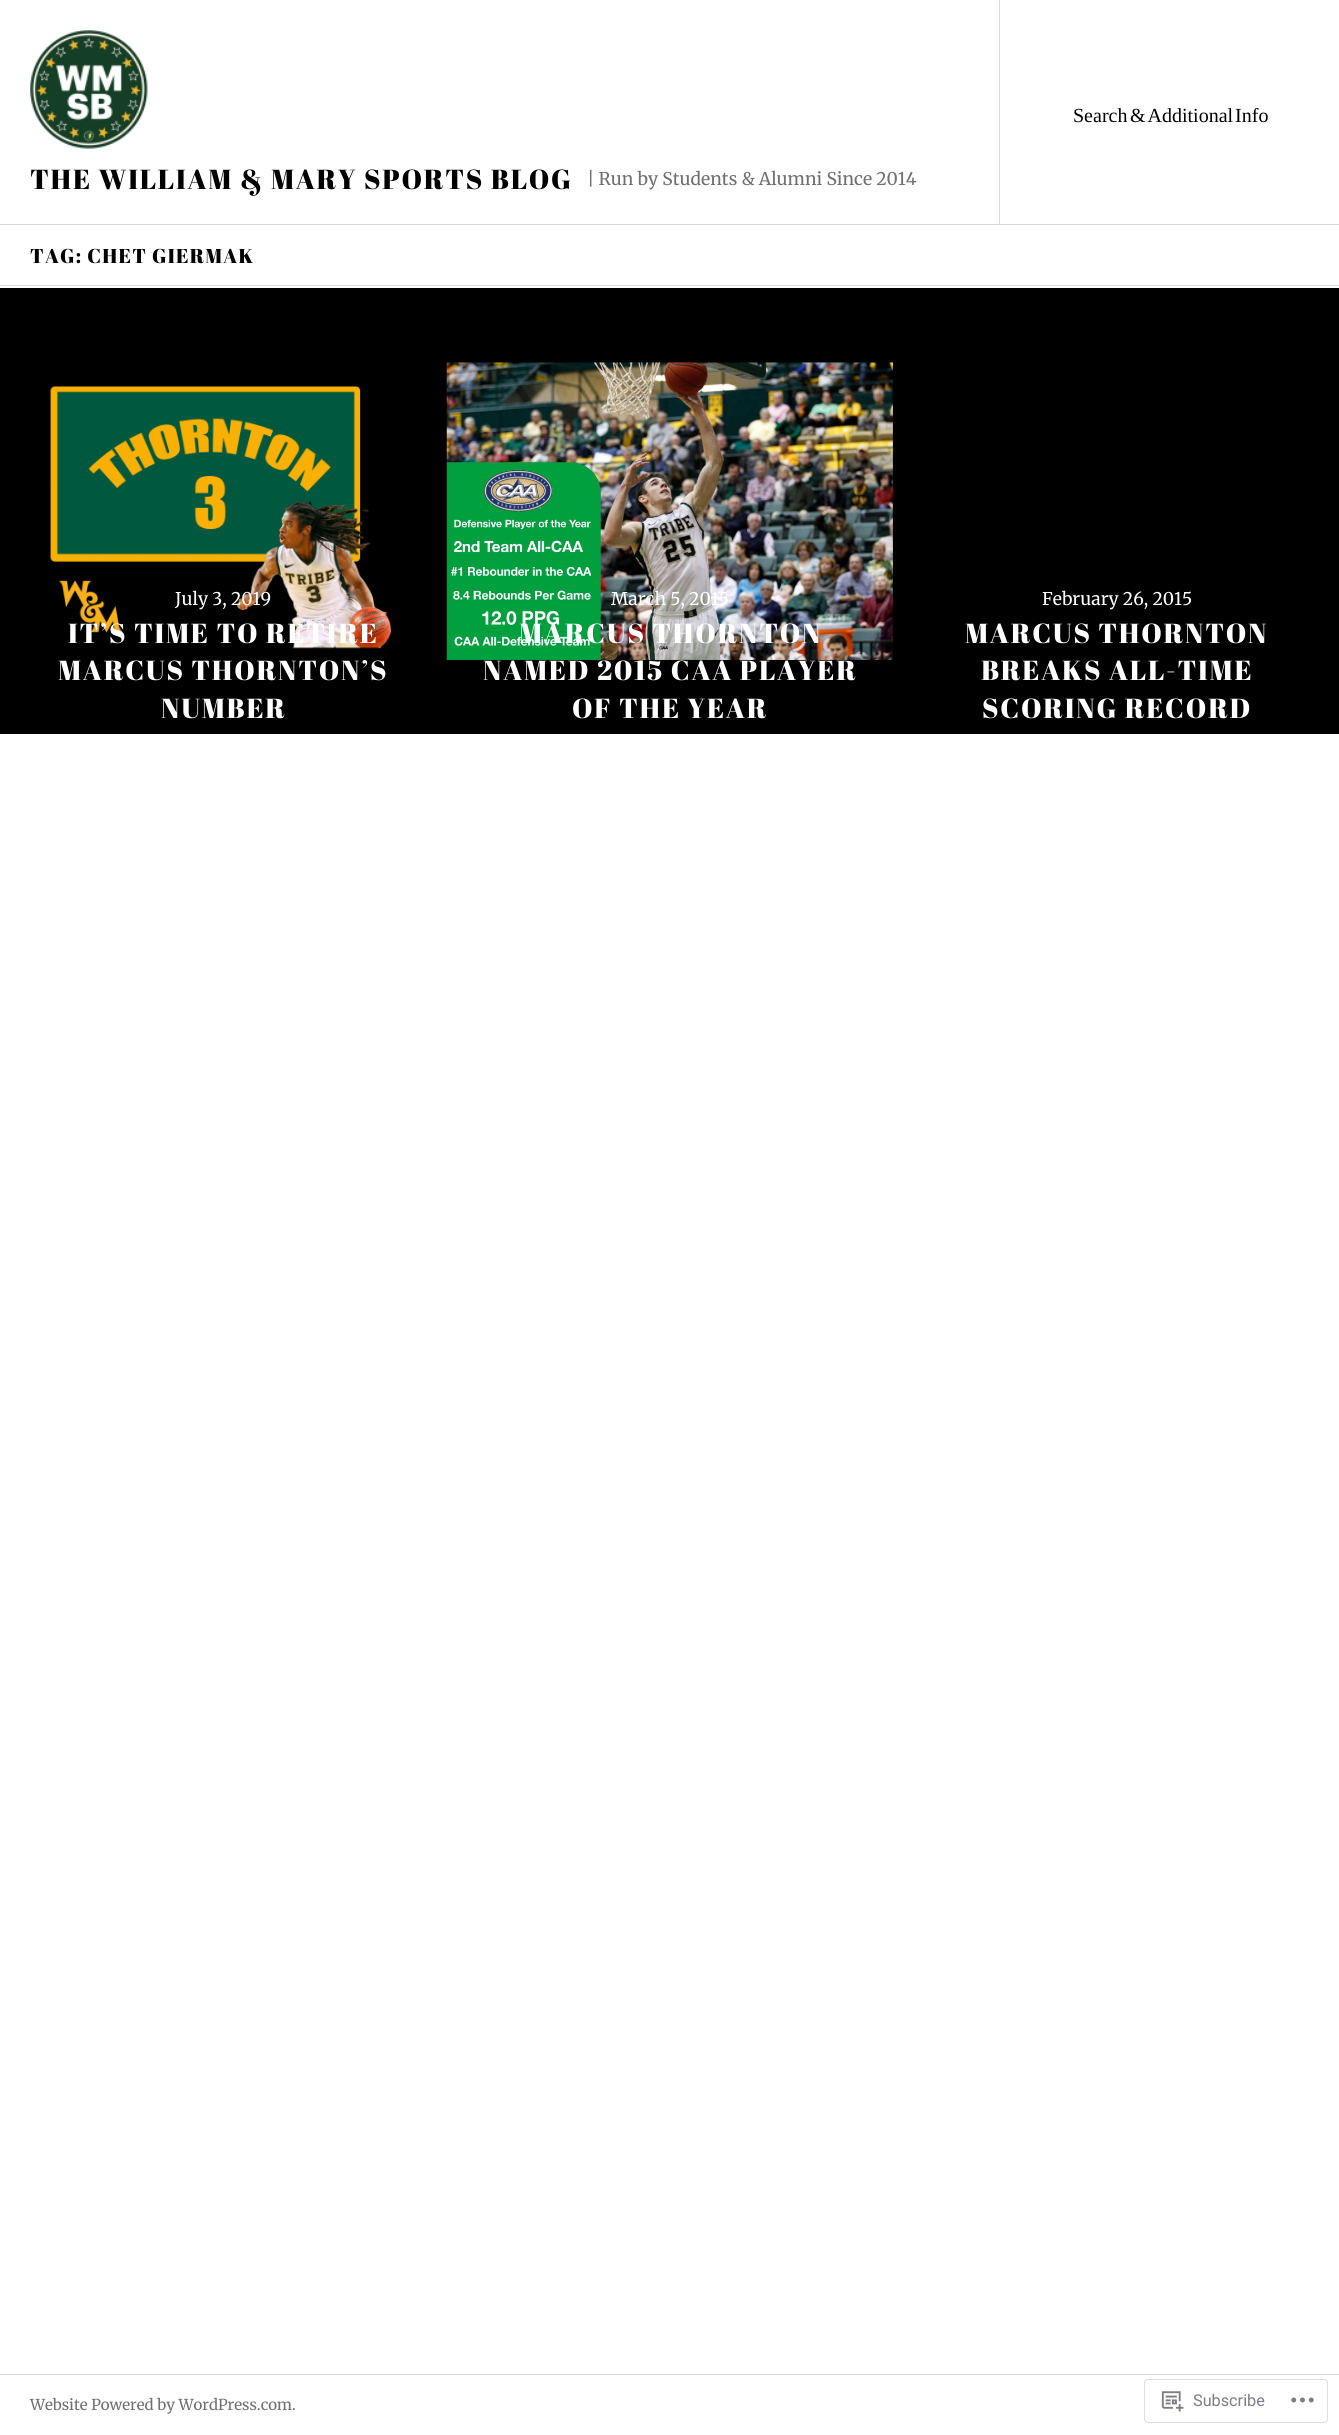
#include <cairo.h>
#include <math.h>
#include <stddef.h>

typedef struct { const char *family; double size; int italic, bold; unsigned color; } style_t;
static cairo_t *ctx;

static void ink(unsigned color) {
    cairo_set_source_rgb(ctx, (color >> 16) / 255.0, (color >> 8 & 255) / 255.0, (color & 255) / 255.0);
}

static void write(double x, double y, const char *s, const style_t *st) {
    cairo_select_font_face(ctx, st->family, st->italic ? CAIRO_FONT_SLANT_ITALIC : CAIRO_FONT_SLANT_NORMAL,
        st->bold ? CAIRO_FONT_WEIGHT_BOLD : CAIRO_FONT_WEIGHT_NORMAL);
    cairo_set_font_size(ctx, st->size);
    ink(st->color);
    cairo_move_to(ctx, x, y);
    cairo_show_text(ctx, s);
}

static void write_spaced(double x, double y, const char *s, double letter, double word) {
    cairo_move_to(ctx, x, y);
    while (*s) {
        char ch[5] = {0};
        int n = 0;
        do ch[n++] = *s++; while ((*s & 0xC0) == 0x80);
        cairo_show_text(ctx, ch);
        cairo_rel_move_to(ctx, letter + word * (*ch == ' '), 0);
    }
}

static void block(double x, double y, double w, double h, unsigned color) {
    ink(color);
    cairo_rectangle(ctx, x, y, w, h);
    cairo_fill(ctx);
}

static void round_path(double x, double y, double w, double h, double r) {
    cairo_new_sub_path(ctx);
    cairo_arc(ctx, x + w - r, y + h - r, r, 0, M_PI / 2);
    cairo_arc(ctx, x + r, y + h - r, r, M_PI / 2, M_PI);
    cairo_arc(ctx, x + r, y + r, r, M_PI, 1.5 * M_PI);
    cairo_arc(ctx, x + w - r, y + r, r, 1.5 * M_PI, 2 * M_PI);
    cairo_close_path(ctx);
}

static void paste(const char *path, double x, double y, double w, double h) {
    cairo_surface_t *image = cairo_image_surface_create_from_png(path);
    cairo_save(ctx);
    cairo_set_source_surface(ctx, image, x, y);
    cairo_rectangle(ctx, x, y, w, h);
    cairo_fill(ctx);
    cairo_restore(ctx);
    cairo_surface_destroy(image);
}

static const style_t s1 = {"Liberation Serif", 20, 0, 0, 0x000000};
static const style_t s2 = {"Merriweather", 17.5, 0, 0, 0x707070};
static const style_t s3 = {"Merriweather", 17.5, 0, 0, 0xffffff};
static const style_t s4 = {"Merriweather", 15, 0, 0, 0x707070};
static const style_t s5 = {"Roboto", 16.25, 0, 0, 0x7b7f85};

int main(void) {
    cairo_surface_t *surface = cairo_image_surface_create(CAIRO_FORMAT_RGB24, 1339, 2435);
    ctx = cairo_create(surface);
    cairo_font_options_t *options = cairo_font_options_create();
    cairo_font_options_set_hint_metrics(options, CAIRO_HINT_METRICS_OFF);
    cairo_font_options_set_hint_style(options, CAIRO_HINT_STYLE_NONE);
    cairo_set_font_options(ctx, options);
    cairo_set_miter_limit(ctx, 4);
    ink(0xffffff);
    cairo_paint(ctx);
    block(0, 224, 1339, 1, 0xd8d8d8);
    block(999, 0, 1, 224, 0xd8d8d8);
    write(1073, 122, "Search", &s1);
    write_spaced(1130, 122, "& Additional Info", 0, -3);
    paste("pic1.png", 30, 30, 118, 119);
    cairo_select_font_face(ctx, "Abril Fatface", CAIRO_FONT_SLANT_NORMAL, CAIRO_FONT_WEIGHT_NORMAL);
    cairo_set_font_size(ctx, 27.5);
    write_spaced(30, 189, "THE WILLIAM & MARY SPORTS BLOG", 1.75, 0);
    write(587, 185, "| Run by Students & Alumni Since 2014", &s2);
    block(0, 285, 1339, 1, 0xd8d8d8);
    cairo_select_font_face(ctx, "Abril Fatface", CAIRO_FONT_SLANT_NORMAL, CAIRO_FONT_WEIGHT_NORMAL);
    cairo_set_font_size(ctx, 20);
    ink(0x000000);
    write_spaced(30, 263, "TAG: CHET GIERMAK", 1.25, 0);
    block(0, 288, 1339, 446, 0x000000);
    paste("pic2.png", 50, 344, 396, 334);
    write(175, 605, "July 3, 2019", &s3);
    cairo_select_font_face(ctx, "Abril Fatface", CAIRO_FONT_SLANT_NORMAL, CAIRO_FONT_WEIGHT_NORMAL);
    cairo_set_font_size(ctx, 27.5);
    write_spaced(68, 643, "IT’S TIME TO RETIRE", 1.75, 0);
    write_spaced(58, 680, "MARCUS THORNTON’S", 1.75, 0);
    write_spaced(161, 718, "NUMBER", 1.75, 0);
    paste("pic3.png", 446, 362, 447, 298);
    write(611, 605, "March 5, 2015", &s3);
    cairo_select_font_face(ctx, "Abril Fatface", CAIRO_FONT_SLANT_NORMAL, CAIRO_FONT_WEIGHT_NORMAL);
    cairo_set_font_size(ctx, 27.5);
    write_spaced(519, 643, "MARCUS THORNTON", 1.75, 0);
    write_spaced(483, 680, "NAMED 2015 CAA PLAYER", 1.75, 0);
    write_spaced(572, 718, "OF THE YEAR", 1.75, 0);
    write(1042, 605, "February 26, 2015", &s3);
    cairo_select_font_face(ctx, "Abril Fatface", CAIRO_FONT_SLANT_NORMAL, CAIRO_FONT_WEIGHT_NORMAL);
    cairo_set_font_size(ctx, 27.5);
    write_spaced(965, 643, "MARCUS THORNTON", 1.75, 0);
    write_spaced(981, 680, "BREAKS ALL-TIME", 1.75, 0);
    write_spaced(982, 718, "SCORING RECORD", 1.75, 0);
    block(0, 2374, 1339, 1, 0xd8d8d8);
    write(30, 2410, "Website Powered by WordPress.com.", &s4);
    round_path(1144.5, 2379.5, 183, 43, 3.5);
    ink(0xdddddf);
    cairo_set_line_width(ctx, 1);
    cairo_stroke(ctx);
    paste("pic4.png", 1161, 2391, 23, 21);
    write(1193, 2406, "Subscribe", &s5);
    paste("pic5.png", 1291, 2397, 23, 6);
    cairo_surface_write_to_png(surface, "screenshot.png");
    cairo_font_options_destroy(options);
    cairo_destroy(ctx);
    cairo_surface_destroy(surface);
    return 0;
}
